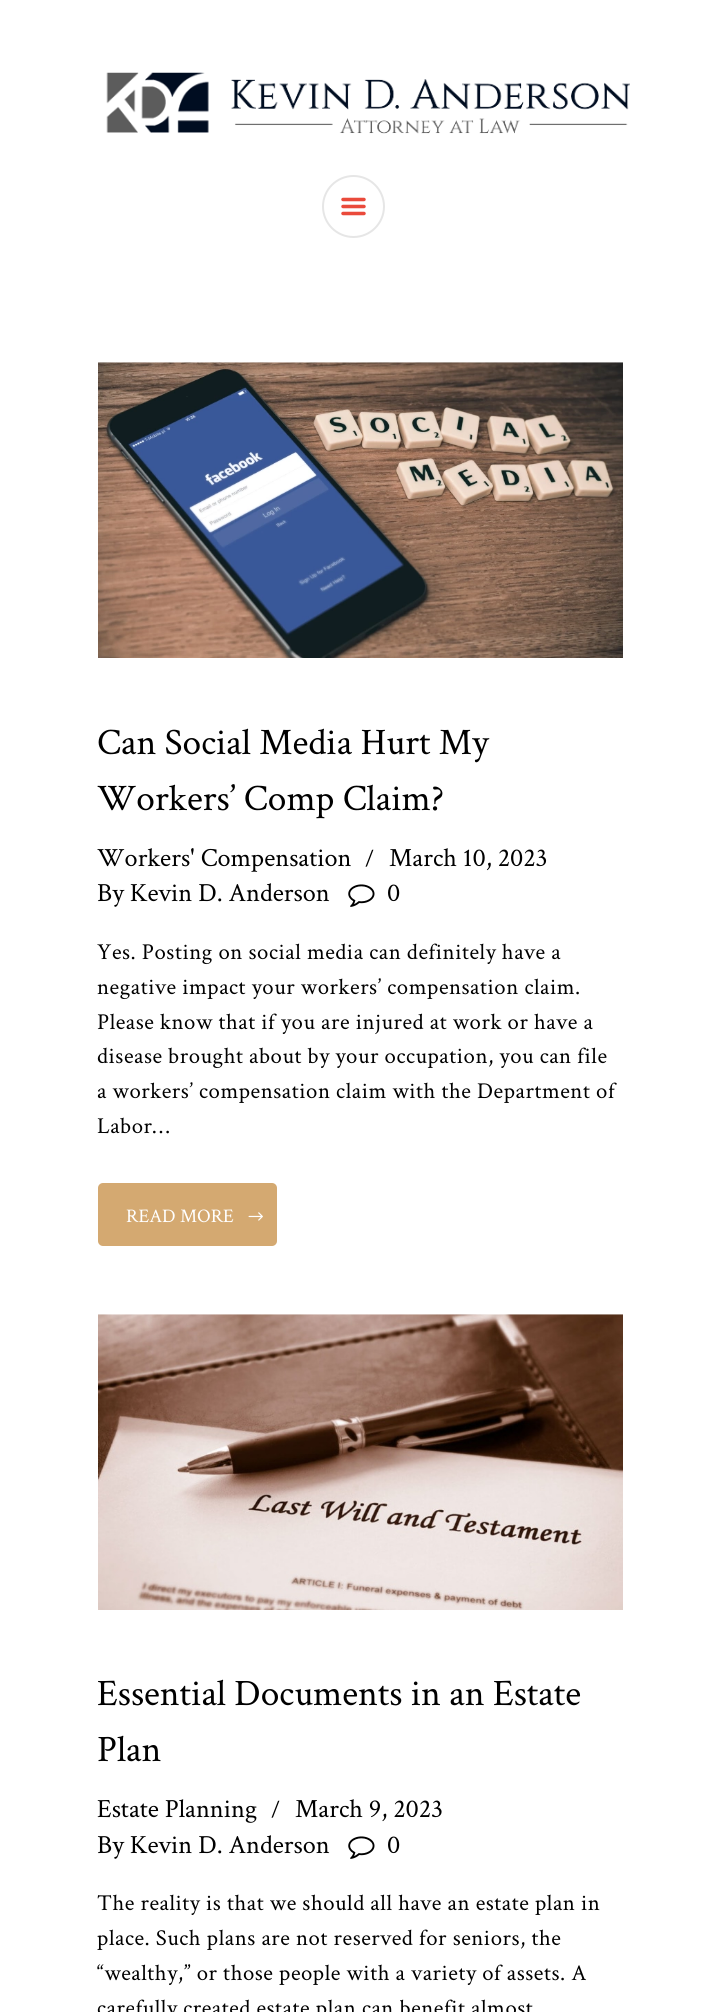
#include <cairo.h>
#include <math.h>
#include <stddef.h>

typedef struct { const char *family; double size; int italic, bold; unsigned color; } style_t;
static cairo_t *ctx;

static void ink(unsigned color) {
    cairo_set_source_rgb(ctx, (color >> 16) / 255.0, (color >> 8 & 255) / 255.0, (color & 255) / 255.0);
}

static void write(double x, double y, const char *s, const style_t *st) {
    cairo_select_font_face(ctx, st->family, st->italic ? CAIRO_FONT_SLANT_ITALIC : CAIRO_FONT_SLANT_NORMAL,
        st->bold ? CAIRO_FONT_WEIGHT_BOLD : CAIRO_FONT_WEIGHT_NORMAL);
    cairo_set_font_size(ctx, st->size);
    ink(st->color);
    cairo_move_to(ctx, x, y);
    cairo_show_text(ctx, s);
}

static void write_spaced(double x, double y, const char *s, double letter, double word) {
    cairo_move_to(ctx, x, y);
    while (*s) {
        char ch[5] = {0};
        int n = 0;
        do ch[n++] = *s++; while ((*s & 0xC0) == 0x80);
        cairo_show_text(ctx, ch);
        cairo_rel_move_to(ctx, letter + word * (*ch == ' '), 0);
    }
}

static void round_path(double x, double y, double w, double h, double r) {
    cairo_new_sub_path(ctx);
    cairo_arc(ctx, x + w - r, y + h - r, r, 0, M_PI / 2);
    cairo_arc(ctx, x + r, y + h - r, r, M_PI / 2, M_PI);
    cairo_arc(ctx, x + r, y + r, r, M_PI, 1.5 * M_PI);
    cairo_arc(ctx, x + w - r, y + r, r, 1.5 * M_PI, 2 * M_PI);
    cairo_close_path(ctx);
}

static void paste(const char *path, double x, double y, double w, double h) {
    cairo_surface_t *image = cairo_image_surface_create_from_png(path);
    cairo_save(ctx);
    cairo_set_source_surface(ctx, image, x, y);
    cairo_rectangle(ctx, x, y, w, h);
    cairo_fill(ctx);
    cairo_restore(ctx);
    cairo_surface_destroy(image);
}

static const style_t s1 = {"Crimson Text", 37.4, 0, 0, 0x000000};
static const style_t s2 = {"Crimson Text", 26.25, 0, 0, 0x000000};
static const style_t s3 = {"Crimson Text", 22, 0, 0, 0x000000};
static const style_t s4 = {"Crimson Text", 19.25, 0, 0, 0xffffff};

int main(void) {
    cairo_surface_t *surface = cairo_image_surface_create(CAIRO_FORMAT_RGB24, 718, 2012);
    ctx = cairo_create(surface);
    cairo_font_options_t *options = cairo_font_options_create();
    cairo_font_options_set_hint_metrics(options, CAIRO_HINT_METRICS_OFF);
    cairo_font_options_set_hint_style(options, CAIRO_HINT_STYLE_NONE);
    cairo_set_font_options(ctx, options);
    cairo_set_miter_limit(ctx, 4);
    ink(0xffffff);
    cairo_paint(ctx);
    paste("pic1.png", 106, 72, 524, 62);
    cairo_arc(ctx, 353.5, 206.5, 30.5, 0, 2 * M_PI);
    ink(0xe6e6e6);
    cairo_stroke(ctx);
    paste("pic2.png", 341, 197, 25, 19);
    paste("pic3.png", 98, 362, 525, 296);
    write(97, 754, "Can Social Media Hurt My", &s1);
    write(97, 810, "Workers’ Comp Claim?", &s1);
    write(97, 866, "Workers' Compensation", &s2);
    write(365, 866, "/", &s3);
    write(389, 866, "March 10, 2023", &s2);
    write(97, 901, "By Kevin D. Anderson", &s2);
    paste("pic4.png", 348, 884, 27, 23);
    write(387, 901, "0", &s2);
    cairo_set_font_size(ctx, 22.75);
    write_spaced(97, 959, "Yes. Posting on social media can definitely have a", 0.53, 0);
    write_spaced(97, 994, "negative impact your workers’ compensation claim.", 0.53, 0);
    write_spaced(97, 1029, "Please know that if you are injured at work or have a", 0.53, 0);
    write_spaced(97, 1063, "disease brought about by your occupation, you can file", 0.53, 0);
    write_spaced(97, 1098, "a workers’ compensation claim with the Department of", 0.53, 0);
    write_spaced(97, 1133, "Labor…", 0.53, 0);
    ink(0xd4a971);
    round_path(98, 1183, 179, 63, 5);
    cairo_fill(ctx);
    write(126, 1222, "READ MORE", &s4);
    paste("pic5.png", 248, 1212, 15, 9);
    paste("pic6.png", 98, 1314, 525, 296);
    write(97, 1705, "Essential Documents in an Estate", &s1);
    write(97, 1761, "Plan", &s1);
    write(97, 1817, "Estate Planning", &s2);
    write(271, 1817, "/", &s3);
    write(295, 1817, "March 9, 2023", &s2);
    write(97, 1853, "By Kevin D. Anderson", &s2);
    paste("pic4.png", 348, 1836, 27, 23);
    write(387, 1853, "0", &s2);
    cairo_set_font_size(ctx, 22.75);
    write_spaced(97, 1910, "The reality is that we should all have an estate plan in", 0.53, 0);
    write_spaced(97, 1945, "place. Such plans are not reserved for seniors, the", 0.53, 0);
    write_spaced(97, 1980, "“wealthy,” or those people with a variety of assets. A", 0.53, 0);
    write_spaced(97, 2015, "carefully created estate plan can benefit almost", 0.53, 0);
    cairo_surface_write_to_png(surface, "screenshot.png");
    cairo_font_options_destroy(options);
    cairo_destroy(ctx);
    cairo_surface_destroy(surface);
    return 0;
}
